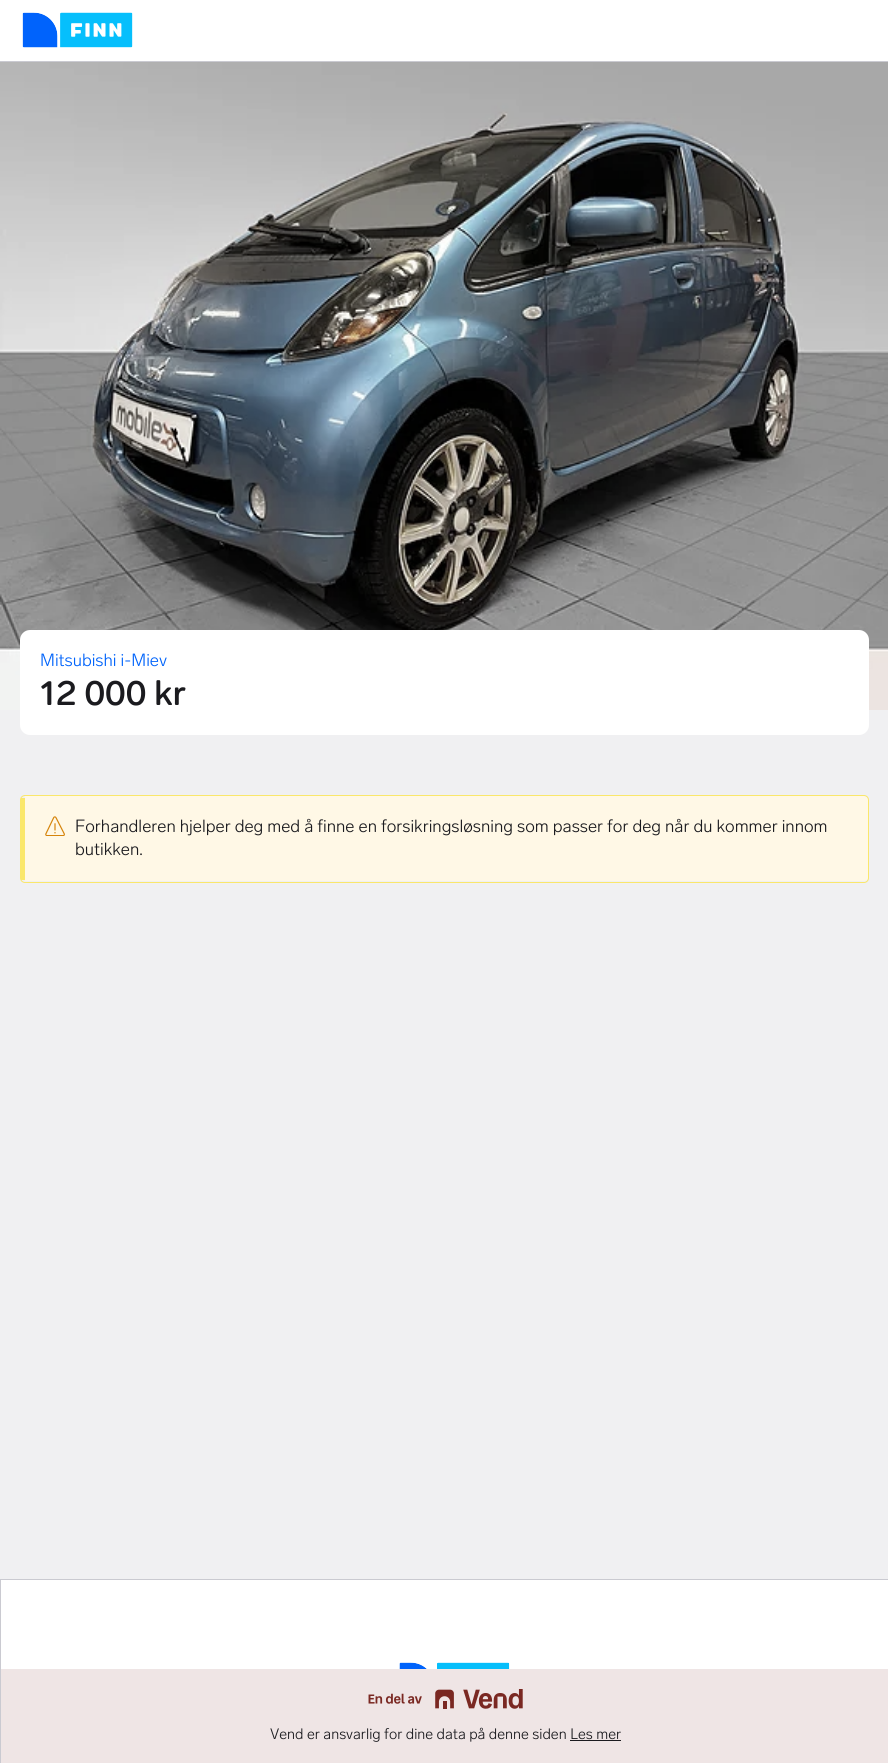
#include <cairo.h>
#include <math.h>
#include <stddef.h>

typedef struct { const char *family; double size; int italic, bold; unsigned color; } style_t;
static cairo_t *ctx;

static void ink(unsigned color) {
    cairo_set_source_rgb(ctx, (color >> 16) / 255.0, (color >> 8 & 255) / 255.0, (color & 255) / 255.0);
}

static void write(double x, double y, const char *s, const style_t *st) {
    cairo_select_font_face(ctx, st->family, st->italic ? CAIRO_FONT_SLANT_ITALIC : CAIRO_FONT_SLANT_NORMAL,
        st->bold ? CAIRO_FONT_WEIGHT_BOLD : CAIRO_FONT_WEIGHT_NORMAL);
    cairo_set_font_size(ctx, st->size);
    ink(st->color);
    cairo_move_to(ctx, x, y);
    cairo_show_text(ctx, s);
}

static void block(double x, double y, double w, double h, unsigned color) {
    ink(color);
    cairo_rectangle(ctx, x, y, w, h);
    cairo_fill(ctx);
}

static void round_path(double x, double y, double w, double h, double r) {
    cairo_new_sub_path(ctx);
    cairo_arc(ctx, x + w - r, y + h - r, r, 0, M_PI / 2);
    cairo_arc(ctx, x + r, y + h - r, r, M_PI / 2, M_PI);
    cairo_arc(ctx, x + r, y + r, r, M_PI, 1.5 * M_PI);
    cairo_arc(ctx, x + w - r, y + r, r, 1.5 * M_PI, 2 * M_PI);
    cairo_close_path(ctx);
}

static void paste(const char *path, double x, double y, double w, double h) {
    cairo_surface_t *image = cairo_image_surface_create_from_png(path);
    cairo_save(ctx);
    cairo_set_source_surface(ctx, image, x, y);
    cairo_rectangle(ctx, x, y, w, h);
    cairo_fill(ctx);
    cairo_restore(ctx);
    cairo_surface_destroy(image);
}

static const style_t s1 = {"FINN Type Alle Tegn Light", 17.5, 0, 0, 0x0063fb};
static const style_t s2 = {"FINN Type Alle Tegn Medium", 35, 0, 0, 0x1b1b1f};
static const style_t s3 = {"FINN Type Alle Tegn Light", 17.5, 0, 0, 0x1b1b1f};
static const style_t s4 = {"FINN Type Alle Tegn Light", 15, 0, 0, 0x1b1b1f};

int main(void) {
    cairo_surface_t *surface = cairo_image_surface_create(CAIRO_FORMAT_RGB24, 888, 1763);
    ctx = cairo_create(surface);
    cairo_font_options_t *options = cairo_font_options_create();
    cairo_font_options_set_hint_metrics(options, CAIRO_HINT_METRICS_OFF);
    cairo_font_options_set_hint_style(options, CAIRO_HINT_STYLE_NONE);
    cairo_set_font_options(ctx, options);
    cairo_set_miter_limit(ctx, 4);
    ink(0xffffff);
    cairo_paint(ctx);
    block(0, 61, 888, 1, 0xcacad1);
    paste("pic1.png", 22, 12, 111, 36);
    block(0, 710, 888, 869, 0xf0f0f2);
    paste("pic2.png", 0, 62, 888, 648);
    ink(0xffffff);
    round_path(20, 630, 849, 105, 10);
    cairo_fill(ctx);
    write(40, 666, "Mitsubishi i-Miev", &s1);
    write(40, 705, "12 000 kr", &s2);
    ink(0xfff8e6);
    cairo_new_path(ctx);
    cairo_move_to(ctx, 25, 796);
    cairo_line_to(ctx, 864, 796);
    cairo_curve_to(ctx, 866, 796, 868, 798, 868, 800);
    cairo_line_to(ctx, 868, 878);
    cairo_curve_to(ctx, 868, 880, 866, 881, 864, 881);
    cairo_line_to(ctx, 25, 881);
    cairo_close_path(ctx);
    cairo_fill(ctx);
    round_path(20.5, 795.5, 848, 87, 4.5);
    ink(0xfae76b);
    cairo_set_line_width(ctx, 1);
    cairo_stroke(ctx);
    block(21, 798, 4, 82, 0xfae76b);
    paste("pic3.png", 45, 816, 20, 20);
    write(75, 832, "Forhandleren hjelper deg med å finne en forsikringsløsning som passer for deg når du kommer innom", &s3);
    write(75, 855, "butikken.", &s3);
    block(0, 1579, 888, 1, 0xcacad1);
    block(0, 1579, 1, 184, 0xcacad1);
    paste("pic4.png", 399, 1662, 111, 7);
    block(1, 1669, 887, 94, 0xefe5e5);
    paste("pic5.png", 368, 1689, 155, 20);
    write(270, 1739, "Vend er ansvarlig for dine data på denne siden Les mer", &s4);
    block(570, 1740, 51, 1, 0x1b1b1f);
    cairo_surface_write_to_png(surface, "screenshot.png");
    cairo_font_options_destroy(options);
    cairo_destroy(ctx);
    cairo_surface_destroy(surface);
    return 0;
}
